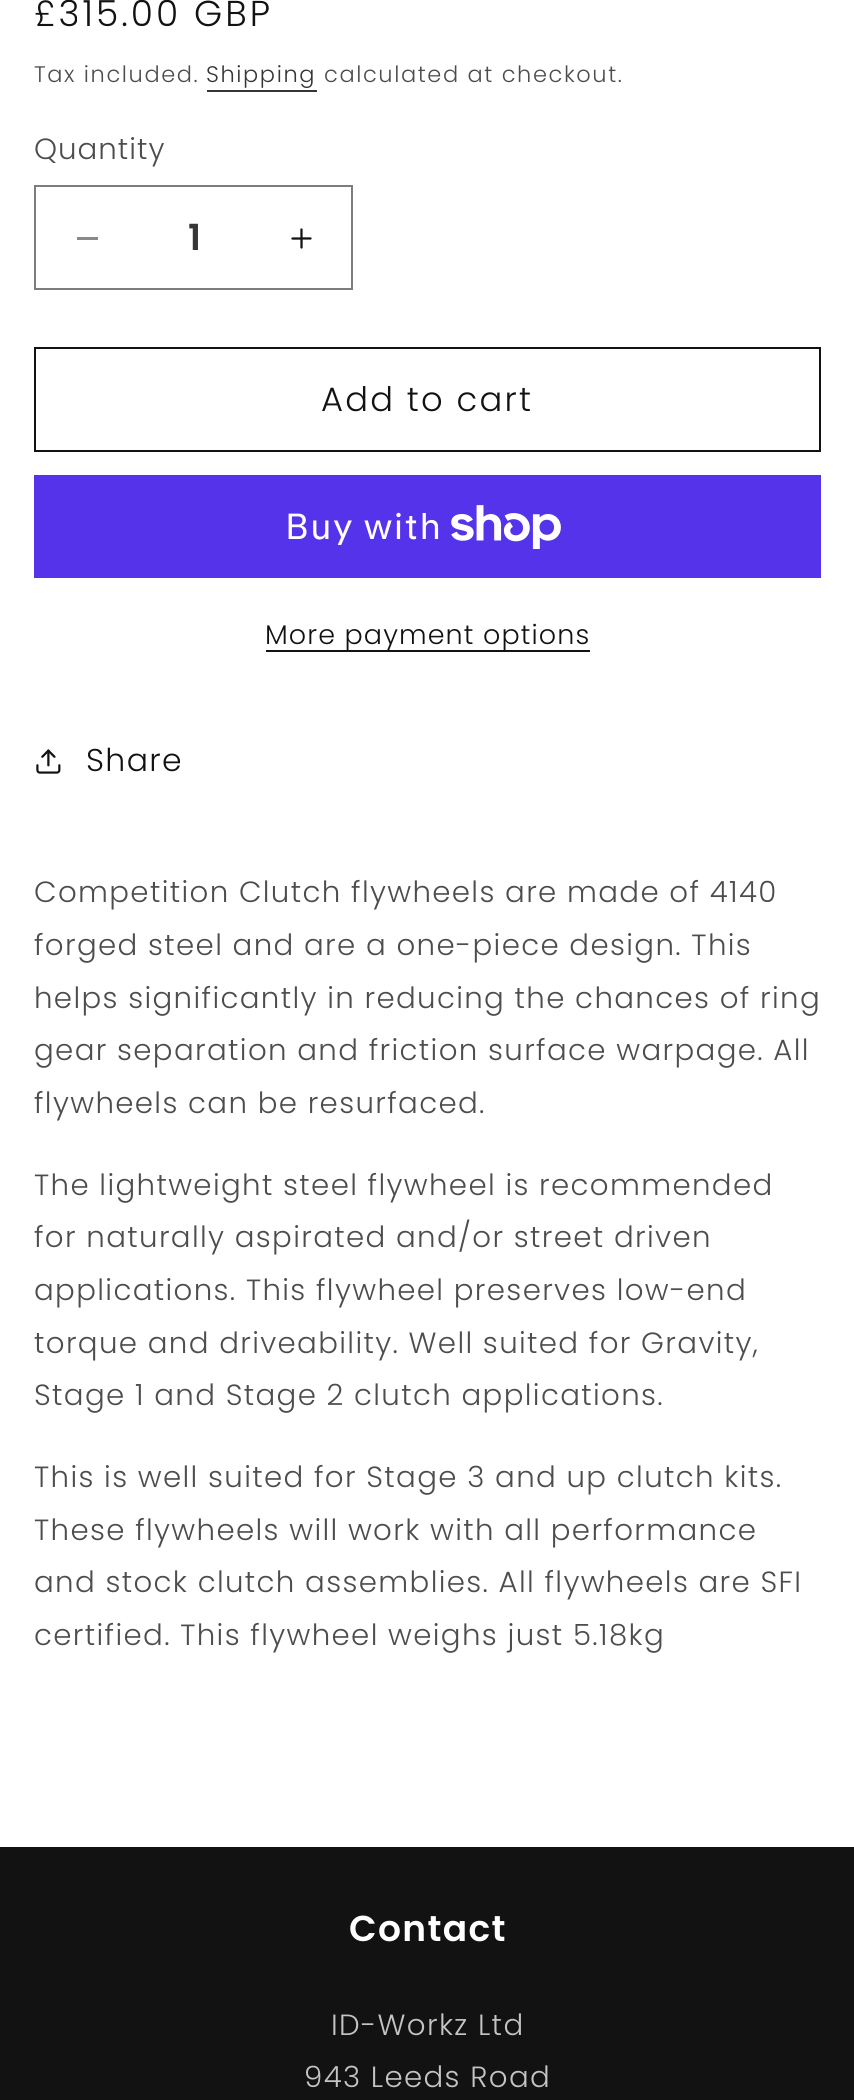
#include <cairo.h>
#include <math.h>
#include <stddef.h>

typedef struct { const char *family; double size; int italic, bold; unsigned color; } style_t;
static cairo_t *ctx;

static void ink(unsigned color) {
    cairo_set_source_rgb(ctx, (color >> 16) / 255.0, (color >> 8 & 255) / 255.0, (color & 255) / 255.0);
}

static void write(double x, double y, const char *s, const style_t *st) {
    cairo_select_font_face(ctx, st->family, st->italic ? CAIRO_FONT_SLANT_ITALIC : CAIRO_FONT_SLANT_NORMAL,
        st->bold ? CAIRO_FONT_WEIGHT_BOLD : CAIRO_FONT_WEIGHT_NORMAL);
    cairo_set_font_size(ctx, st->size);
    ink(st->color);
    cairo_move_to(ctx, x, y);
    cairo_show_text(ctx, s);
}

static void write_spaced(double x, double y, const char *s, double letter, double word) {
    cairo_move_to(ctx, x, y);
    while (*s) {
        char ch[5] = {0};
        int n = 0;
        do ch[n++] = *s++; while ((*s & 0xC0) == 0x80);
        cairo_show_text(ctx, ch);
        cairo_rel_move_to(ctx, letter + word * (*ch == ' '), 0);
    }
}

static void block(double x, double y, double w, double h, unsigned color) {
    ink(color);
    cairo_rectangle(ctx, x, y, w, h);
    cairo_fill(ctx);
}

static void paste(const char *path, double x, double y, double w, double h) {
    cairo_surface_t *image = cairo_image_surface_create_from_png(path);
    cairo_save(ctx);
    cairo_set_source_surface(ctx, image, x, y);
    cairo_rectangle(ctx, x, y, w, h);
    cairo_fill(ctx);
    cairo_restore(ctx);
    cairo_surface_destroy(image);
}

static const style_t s1 = {"Poppins SemiBold", 36, 0, 0, 0x363636};

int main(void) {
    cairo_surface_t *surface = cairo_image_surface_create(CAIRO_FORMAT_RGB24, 854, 2100);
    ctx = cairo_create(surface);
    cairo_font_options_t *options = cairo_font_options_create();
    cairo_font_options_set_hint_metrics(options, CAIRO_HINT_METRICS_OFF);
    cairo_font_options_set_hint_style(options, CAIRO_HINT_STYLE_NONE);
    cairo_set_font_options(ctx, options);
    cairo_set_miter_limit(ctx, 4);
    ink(0xffffff);
    cairo_paint(ctx);
    cairo_select_font_face(ctx, "Poppins Light", CAIRO_FONT_SLANT_NORMAL, CAIRO_FONT_WEIGHT_NORMAL);
    cairo_set_font_size(ctx, 36);
    ink(0x121212);
    write_spaced(34, 26, "£315.00 GBP", 3, 0);
    cairo_set_font_size(ctx, 22.5);
    ink(0x4d4d4d);
    write_spaced(34, 82, "Tax included.", 1.6, 0);
    ink(0x363636);
    write_spaced(206, 82, "Shipping", 1.6, 0);
    block(207, 90, 110, 2, 0x363636);
    ink(0x4d4d4d);
    write_spaced(324, 82, "calculated at checkout.", 1.6, 0);
    cairo_set_font_size(ctx, 29.25);
    write_spaced(34, 159, "Quantity", 1, 0);
    block(77, 237, 21, 3, 0x898989);
    paste("pic1.png", 291, 228, 21, 21);
    cairo_rectangle(ctx, 35, 186, 317, 103);
    ink(0x7d7d7d);
    cairo_stroke(ctx);
    write(188, 250, "1", &s1);
    cairo_rectangle(ctx, 35, 348, 785, 103);
    ink(0x121212);
    cairo_stroke(ctx);
    cairo_select_font_face(ctx, "Poppins Light", CAIRO_FONT_SLANT_NORMAL, CAIRO_FONT_WEIGHT_NORMAL);
    cairo_set_font_size(ctx, 33.75);
    write_spaced(321, 411, "Add to cart", 2.25, 0);
    block(34, 475, 787, 103, 0x5433eb);
    cairo_select_font_face(ctx, "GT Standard", CAIRO_FONT_SLANT_NORMAL, CAIRO_FONT_WEIGHT_NORMAL);
    cairo_set_font_size(ctx, 36);
    ink(0xffffff);
    write_spaced(285, 539, "Buy with", 1.35, 0);
    paste("pic2.png", 451, 505, 110, 44);
    block(266, 650, 324, 2, 0x121212);
    cairo_select_font_face(ctx, "Poppins Light", CAIRO_FONT_SLANT_NORMAL, CAIRO_FONT_WEIGHT_NORMAL);
    cairo_set_font_size(ctx, 27);
    write_spaced(265, 644, "More payment options", 1.1, 0);
    paste("pic3.png", 36, 749, 25, 25);
    cairo_set_font_size(ctx, 31.5);
    write_spaced(86, 771, "Share", 1.35, 0);
    cairo_set_font_size(ctx, 29.25);
    ink(0x4d4d4d);
    write_spaced(34, 902, "Competition Clutch flywheels are made of 4140", 1.35, 0);
    write_spaced(34, 955, "forged steel and are a one-piece design. This", 1.35, 0);
    write_spaced(34, 1008, "helps significantly in reducing the chances of ring", 1.35, 0);
    write_spaced(34, 1060, "gear separation and friction surface warpage. All", 1.35, 0);
    write_spaced(34, 1113, "flywheels can be resurfaced.", 1.35, 0);
    write_spaced(34, 1195, "The lightweight steel flywheel is recommended", 1.35, 0);
    write_spaced(34, 1247, "for naturally aspirated and/or street driven", 1.35, 0);
    write_spaced(34, 1300, "applications. This flywheel preserves low-end", 1.35, 0);
    write_spaced(34, 1353, "torque and driveability. Well suited for Gravity,", 1.35, 0);
    write_spaced(34, 1405, "Stage 1 and Stage 2 clutch applications.", 1.35, 0);
    write_spaced(34, 1487, "This is well suited for Stage 3 and up clutch kits.", 1.35, 0);
    write_spaced(34, 1540, "These flywheels will work with all performance", 1.35, 0);
    write_spaced(34, 1592, "and stock clutch assemblies. All flywheels are SFI", 1.35, 0);
    write_spaced(34, 1645, "certified. This flywheel weighs just 5.18kg", 1.35, 0);
    block(0, 1847, 854, 253, 0x121212);
    cairo_select_font_face(ctx, "Poppins SemiBold", CAIRO_FONT_SLANT_NORMAL, CAIRO_FONT_WEIGHT_NORMAL);
    cairo_set_font_size(ctx, 36);
    ink(0xffffff);
    write_spaced(349, 1941, "Contact", 1.35, 0);
    cairo_select_font_face(ctx, "Poppins Light", CAIRO_FONT_SLANT_NORMAL, CAIRO_FONT_WEIGHT_NORMAL);
    cairo_set_font_size(ctx, 29.25);
    ink(0xc4c4c4);
    write_spaced(331, 2035, "ID-Workz Ltd", 1.35, 0);
    write_spaced(304, 2087, "943 Leeds Road", 1.35, 0);
    cairo_surface_write_to_png(surface, "screenshot.png");
    cairo_font_options_destroy(options);
    cairo_destroy(ctx);
    cairo_surface_destroy(surface);
    return 0;
}
